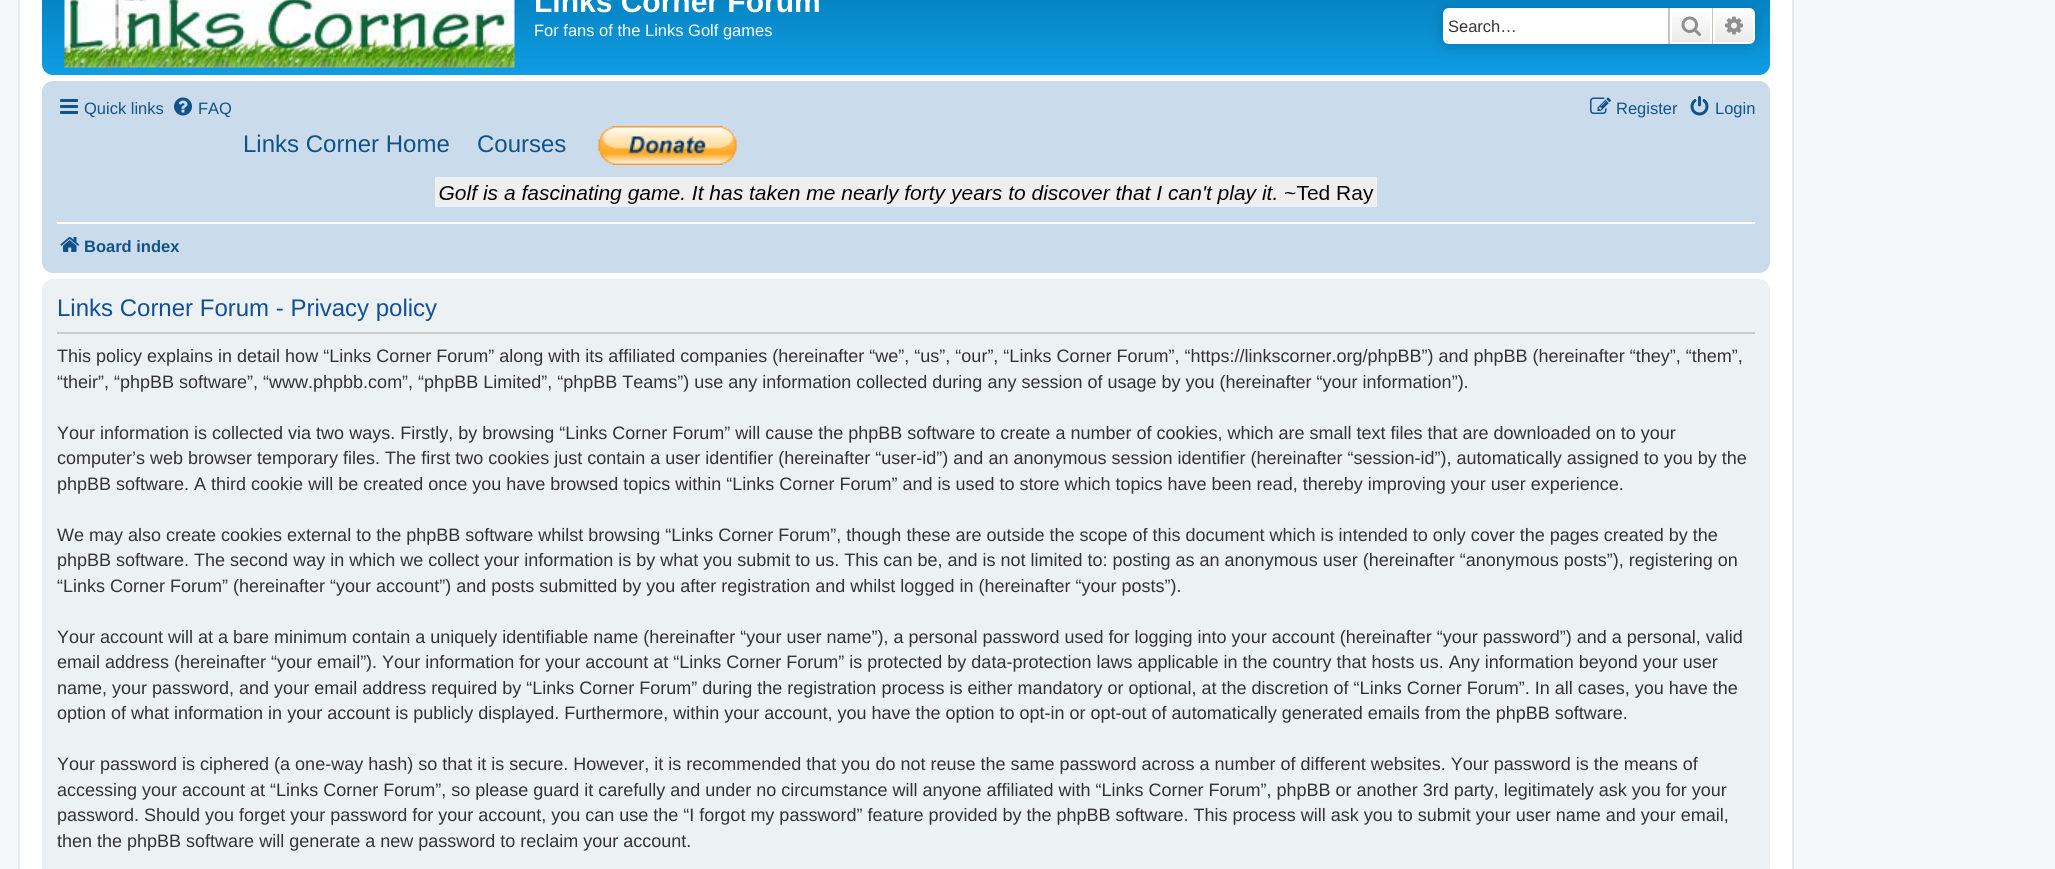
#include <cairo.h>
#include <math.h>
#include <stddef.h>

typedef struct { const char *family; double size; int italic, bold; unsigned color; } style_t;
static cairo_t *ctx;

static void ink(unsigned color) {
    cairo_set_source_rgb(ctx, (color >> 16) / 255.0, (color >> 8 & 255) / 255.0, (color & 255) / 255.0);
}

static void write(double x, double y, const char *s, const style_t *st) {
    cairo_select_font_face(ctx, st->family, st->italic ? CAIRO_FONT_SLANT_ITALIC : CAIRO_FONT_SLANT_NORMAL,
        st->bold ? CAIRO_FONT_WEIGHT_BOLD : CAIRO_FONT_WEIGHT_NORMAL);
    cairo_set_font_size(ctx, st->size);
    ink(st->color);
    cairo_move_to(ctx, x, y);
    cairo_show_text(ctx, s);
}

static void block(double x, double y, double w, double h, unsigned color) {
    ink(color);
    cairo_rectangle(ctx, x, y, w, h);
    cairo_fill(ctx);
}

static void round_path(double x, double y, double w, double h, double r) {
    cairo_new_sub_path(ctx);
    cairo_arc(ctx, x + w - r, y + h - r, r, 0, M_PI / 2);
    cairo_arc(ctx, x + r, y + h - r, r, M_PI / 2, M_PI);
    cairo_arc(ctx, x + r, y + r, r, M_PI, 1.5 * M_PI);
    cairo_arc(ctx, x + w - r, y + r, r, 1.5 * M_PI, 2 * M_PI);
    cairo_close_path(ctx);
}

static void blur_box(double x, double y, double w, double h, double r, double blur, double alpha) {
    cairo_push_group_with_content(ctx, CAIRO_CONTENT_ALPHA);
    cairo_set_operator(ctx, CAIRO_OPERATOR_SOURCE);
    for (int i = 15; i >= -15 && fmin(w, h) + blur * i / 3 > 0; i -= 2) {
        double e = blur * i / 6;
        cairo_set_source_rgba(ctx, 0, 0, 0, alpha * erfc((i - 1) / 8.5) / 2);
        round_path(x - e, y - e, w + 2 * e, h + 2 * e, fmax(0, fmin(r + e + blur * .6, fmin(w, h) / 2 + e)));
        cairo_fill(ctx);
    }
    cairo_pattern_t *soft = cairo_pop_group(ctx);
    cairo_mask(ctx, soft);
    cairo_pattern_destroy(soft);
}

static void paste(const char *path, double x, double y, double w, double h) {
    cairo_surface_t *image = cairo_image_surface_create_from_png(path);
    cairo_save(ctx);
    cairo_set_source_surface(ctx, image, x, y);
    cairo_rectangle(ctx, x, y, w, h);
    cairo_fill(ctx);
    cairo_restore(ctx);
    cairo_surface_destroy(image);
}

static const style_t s1 = {"Liberation Sans", 30, 0, 1, 0xffffff};
static const style_t s2 = {"Liberation Sans", 16.5, 0, 0, 0xffffff};
static const style_t s3 = {"Liberation Sans", 16.5, 0, 0, 0x333333};
static const style_t s4 = {"Liberation Sans", 16.5, 0, 0, 0x105289};
static const style_t s5 = {"Liberation Sans", 24, 0, 0, 0x105289};
static const style_t s6 = {"Liberation Sans", 16.5, 0, 1, 0x105289};
static const style_t s7 = {"Liberation Sans", 24, 0, 0, 0x115098};
static const style_t s8 = {"Liberation Sans", 18, 0, 0, 0x333333};

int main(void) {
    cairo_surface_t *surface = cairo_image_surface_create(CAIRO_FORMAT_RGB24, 2055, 869);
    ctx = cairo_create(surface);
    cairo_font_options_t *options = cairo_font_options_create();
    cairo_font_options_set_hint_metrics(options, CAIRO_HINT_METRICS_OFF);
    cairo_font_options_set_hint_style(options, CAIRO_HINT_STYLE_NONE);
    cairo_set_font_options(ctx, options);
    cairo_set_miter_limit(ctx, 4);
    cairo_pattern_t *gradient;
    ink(0xf5f7fa);
    cairo_paint(ctx);
    ink(0xffffff);
    cairo_rectangle(ctx, 19, -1, 1774, 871);
    cairo_fill_preserve(ctx);
    ink(0xe6e9ed);
    cairo_stroke(ctx);
    gradient = cairo_pattern_create_linear(906, -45, 906, 93);
    cairo_pattern_add_color_stop_rgba(gradient, 0, 0.416, 0.808, 1, 1);
    cairo_pattern_add_color_stop_rgba(gradient, 0.02, 0, 0.463, 0.694, 1);
    cairo_pattern_add_color_stop_rgba(gradient, 1, 0.071, 0.639, 0.922, 1);
    cairo_set_source(ctx, gradient);
    cairo_pattern_destroy(gradient);
    round_path(42, -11, 1728, 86, 11);
    cairo_fill(ctx);
    paste("pic1.png", 64, 0, 451, 68);
    write(534, 12, "Links Corner Forum", &s1);
    write(534, 36, "For fans of the Links Golf games", &s2);
    ink(0x0075b0);
    blur_box(1443, 8, 312, 36, 6, 7.5, 1);
    ink(0xffffff);
    cairo_new_path(ctx);
    cairo_move_to(ctx, 1449, 8);
    cairo_line_to(ctx, 1668, 8);
    cairo_line_to(ctx, 1668, 44);
    cairo_line_to(ctx, 1449, 44);
    cairo_curve_to(ctx, 1445.5, 44, 1443, 41.5, 1443, 38);
    cairo_line_to(ctx, 1443, 14);
    cairo_curve_to(ctx, 1443, 10.5, 1445.5, 8, 1449, 8);
    cairo_close_path(ctx);
    cairo_fill(ctx);
    write(1448, 32, "Search…", &s3);
    gradient = cairo_pattern_create_linear(1691, 7.5, 1691, 44);
    cairo_pattern_add_color_stop_rgba(gradient, 0, 1, 1, 1, 1);
    cairo_pattern_add_color_stop_rgba(gradient, 1, 0.914, 0.914, 0.914, 1);
    cairo_set_source(ctx, gradient);
    cairo_pattern_destroy(gradient);
    cairo_rectangle(ctx, 1672, 10, 38, 32);
    cairo_fill(ctx);
    cairo_rectangle(ctx, 1671, 9, 40, 34);
    ink(0xffffff);
    cairo_stroke(ctx);
    block(1712, 8, 1, 36, 0xc7c3bf);
    block(1668, 8, 2, 36, 0xc7c3bf);
    paste("pic2.png", 1681, 16, 20, 20);
    gradient = cairo_pattern_create_linear(1734, 7.5, 1734, 44);
    cairo_pattern_add_color_stop_rgba(gradient, 0, 1, 1, 1, 1);
    cairo_pattern_add_color_stop_rgba(gradient, 1, 0.914, 0.914, 0.914, 1);
    cairo_set_source(ctx, gradient);
    cairo_pattern_destroy(gradient);
    cairo_new_path(ctx);
    cairo_move_to(ctx, 1714, 9);
    cairo_line_to(ctx, 1749, 9);
    cairo_curve_to(ctx, 1752, 9, 1754, 11, 1754, 14);
    cairo_line_to(ctx, 1754, 38);
    cairo_curve_to(ctx, 1754, 41, 1752, 43, 1749, 43);
    cairo_line_to(ctx, 1714, 43);
    cairo_close_path(ctx);
    cairo_fill_preserve(ctx);
    ink(0xffffff);
    cairo_stroke(ctx);
    paste("pic3.png", 1725, 16, 18, 19);
    ink(0xcadceb);
    round_path(42, 81, 1728, 192, 11);
    cairo_fill(ctx);
    paste("pic4.png", 60, 99, 18, 15);
    write(84, 114, "Quick links", &s4);
    paste("pic5.png", 174, 97, 18, 19);
    write(198, 114, "FAQ", &s4);
    paste("pic6.png", 1590, 97, 21, 17);
    write(1616, 114, "Register", &s4);
    paste("pic7.png", 1690, 96, 19, 20);
    write(1715, 114, "Login", &s4);
    write(243, 152, "Links Corner Home", &s5);
    write(477, 152, "Courses", &s5);
    paste("pic8.png", 598, 126, 139, 39);
    paste("pic9.png", 435, 177, 942, 30);
    block(57, 222, 1698, 2, 0xffffff);
    paste("pic10.png", 60, 237, 20, 15);
    write(84, 252, "Board index", &s6);
    ink(0xecf1f3);
    round_path(42, 279, 1728, 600, 11);
    cairo_fill(ctx);
    block(57, 332, 1698, 2, 0xcccccc);
    write(57, 316, "Links Corner Forum - Privacy policy", &s7);
    write(57, 362, "This policy explains in detail how “Links Corner Forum” along with its affiliated companies (hereinafter “we”, “us”, “our”, “Links Corner Forum”, “https://linkscorner.org/phpBB”) and phpBB (hereinafter “they”, “them”,", &s8);
    write(57, 388, "“their”, “phpBB software”, “www.phpbb.com”, “phpBB Limited”, “phpBB Teams”) use any information collected during any session of usage by you (hereinafter “your information”).", &s8);
    write(57, 439, "Your information is collected via two ways. Firstly, by browsing “Links Corner Forum” will cause the phpBB software to create a number of cookies, which are small text files that are downloaded on to your", &s8);
    write(57, 464, "computer’s web browser temporary files. The first two cookies just contain a user identifier (hereinafter “user-id”) and an anonymous session identifier (hereinafter “session-id”), automatically assigned to you by the", &s8);
    write(57, 490, "phpBB software. A third cookie will be created once you have browsed topics within “Links Corner Forum” and is used to store which topics have been read, thereby improving your user experience.", &s8);
    write(57, 541, "We may also create cookies external to the phpBB software whilst browsing “Links Corner Forum”, though these are outside the scope of this document which is intended to only cover the pages created by the", &s8);
    write(57, 566, "phpBB software. The second way in which we collect your information is by what you submit to us. This can be, and is not limited to: posting as an anonymous user (hereinafter “anonymous posts”), registering on", &s8);
    write(57, 592, "“Links Corner Forum” (hereinafter “your account”) and posts submitted by you after registration and whilst logged in (hereinafter “your posts”).", &s8);
    write(57, 643, "Your account will at a bare minimum contain a uniquely identifiable name (hereinafter “your user name”), a personal password used for logging into your account (hereinafter “your password”) and a personal, valid", &s8);
    write(57, 668, "email address (hereinafter “your email”). Your information for your account at “Links Corner Forum” is protected by data-protection laws applicable in the country that hosts us. Any information beyond your user", &s8);
    write(57, 694, "name, your password, and your email address required by “Links Corner Forum” during the registration process is either mandatory or optional, at the discretion of “Links Corner Forum”. In all cases, you have the", &s8);
    write(57, 719, "option of what information in your account is publicly displayed. Furthermore, within your account, you have the option to opt-in or opt-out of automatically generated emails from the phpBB software.", &s8);
    write(57, 770, "Your password is ciphered (a one-way hash) so that it is secure. However, it is recommended that you do not reuse the same password across a number of different websites. Your password is the means of", &s8);
    write(57, 796, "accessing your account at “Links Corner Forum”, so please guard it carefully and under no circumstance will anyone affiliated with “Links Corner Forum”, phpBB or another 3rd party, legitimately ask you for your", &s8);
    write(57, 821, "password. Should you forget your password for your account, you can use the “I forgot my password” feature provided by the phpBB software. This process will ask you to submit your user name and your email,", &s8);
    write(57, 847, "then the phpBB software will generate a new password to reclaim your account.", &s8);
    cairo_surface_write_to_png(surface, "screenshot.png");
    cairo_font_options_destroy(options);
    cairo_destroy(ctx);
    cairo_surface_destroy(surface);
    return 0;
}
